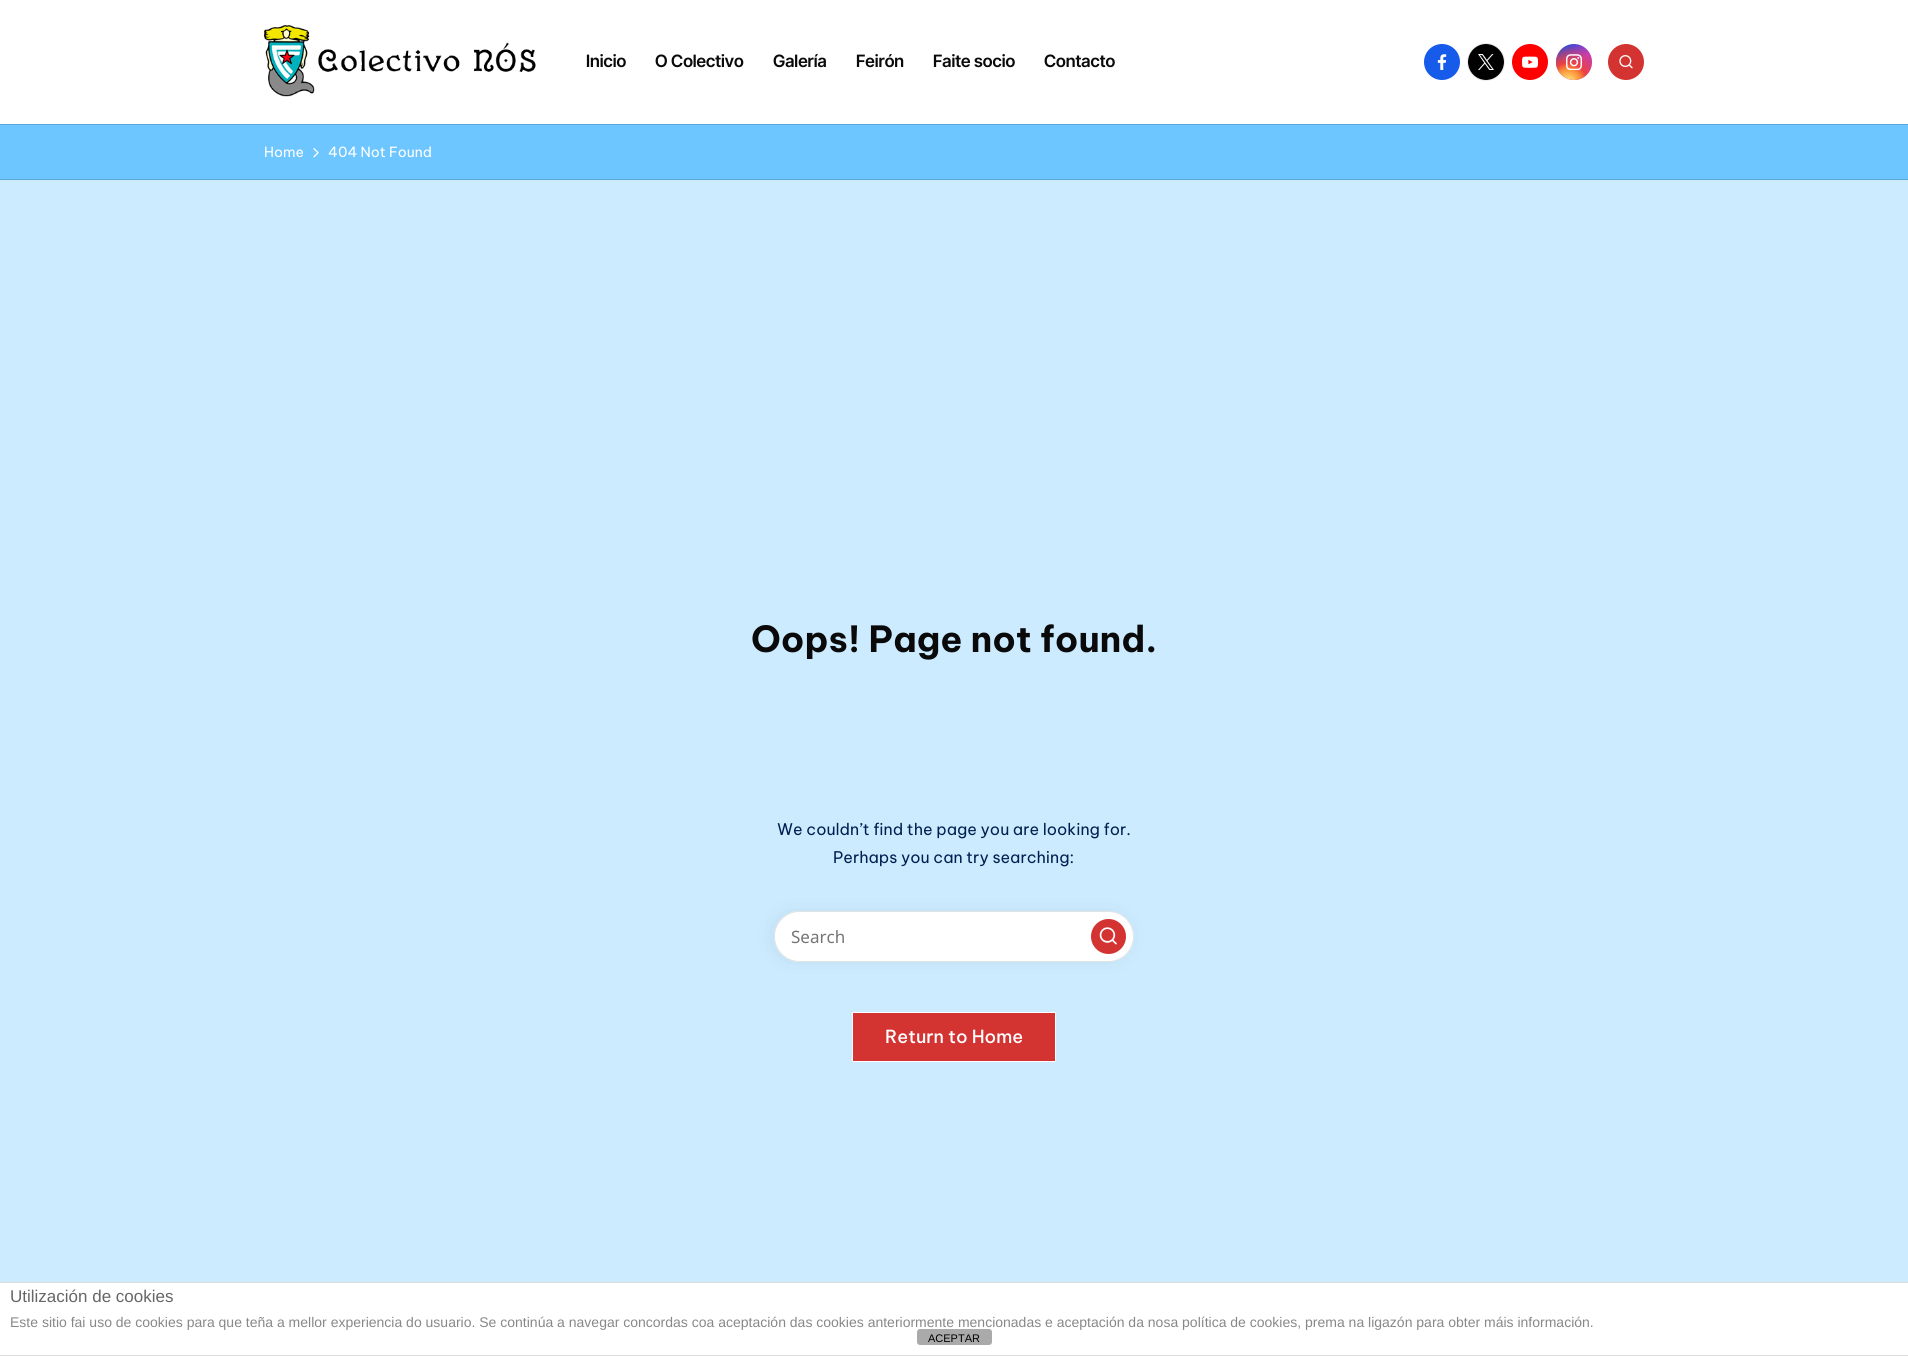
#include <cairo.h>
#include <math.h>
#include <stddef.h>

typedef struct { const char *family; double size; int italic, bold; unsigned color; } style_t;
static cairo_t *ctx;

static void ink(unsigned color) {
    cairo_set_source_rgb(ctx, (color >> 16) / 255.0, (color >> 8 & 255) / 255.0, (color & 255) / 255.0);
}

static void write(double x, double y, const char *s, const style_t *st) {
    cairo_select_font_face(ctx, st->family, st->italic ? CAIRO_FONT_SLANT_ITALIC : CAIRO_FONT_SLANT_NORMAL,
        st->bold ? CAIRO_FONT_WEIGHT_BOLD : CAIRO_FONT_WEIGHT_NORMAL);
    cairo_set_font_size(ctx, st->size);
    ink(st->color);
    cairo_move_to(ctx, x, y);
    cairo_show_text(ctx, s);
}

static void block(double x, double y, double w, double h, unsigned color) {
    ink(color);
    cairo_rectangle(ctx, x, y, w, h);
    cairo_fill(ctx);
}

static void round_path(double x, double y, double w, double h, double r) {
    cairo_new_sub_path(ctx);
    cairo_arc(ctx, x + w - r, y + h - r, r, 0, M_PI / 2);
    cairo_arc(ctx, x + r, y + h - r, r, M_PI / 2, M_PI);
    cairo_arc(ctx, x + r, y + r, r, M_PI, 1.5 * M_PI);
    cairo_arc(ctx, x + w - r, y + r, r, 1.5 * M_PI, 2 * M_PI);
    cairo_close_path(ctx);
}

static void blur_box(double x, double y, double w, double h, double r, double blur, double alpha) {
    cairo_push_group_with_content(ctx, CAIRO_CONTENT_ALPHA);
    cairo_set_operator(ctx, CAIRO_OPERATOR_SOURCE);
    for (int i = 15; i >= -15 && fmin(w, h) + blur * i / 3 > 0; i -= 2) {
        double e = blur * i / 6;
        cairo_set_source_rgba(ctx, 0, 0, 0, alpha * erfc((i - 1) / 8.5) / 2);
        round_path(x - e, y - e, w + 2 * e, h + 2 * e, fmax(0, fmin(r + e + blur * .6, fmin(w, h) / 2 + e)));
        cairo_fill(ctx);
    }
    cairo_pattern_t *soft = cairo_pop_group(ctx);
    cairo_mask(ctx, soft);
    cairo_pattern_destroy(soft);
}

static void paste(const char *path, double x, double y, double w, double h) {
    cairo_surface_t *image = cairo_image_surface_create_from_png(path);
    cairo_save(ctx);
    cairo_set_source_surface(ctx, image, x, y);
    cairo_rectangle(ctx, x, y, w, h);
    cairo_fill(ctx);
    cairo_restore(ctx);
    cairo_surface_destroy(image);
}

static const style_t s1 = {"Inter Tight SemiBold", 17, 0, 0, 0x0a0a0a};
static const style_t s2 = {"Be Vietnam Pro", 14, 0, 0, 0xffffff};
static const style_t s3 = {"Be Vietnam Pro", 36, 0, 1, 0x0a0a0a};
static const style_t s4 = {"Be Vietnam Pro", 16, 0, 0, 0x002050};
static const style_t s5 = {"Noto Sans", 17, 0, 0, 0x757575};
static const style_t s6 = {"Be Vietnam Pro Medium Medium", 18, 0, 0, 0xffffff};
static const style_t s7 = {"Liberation Sans", 17, 0, 0, 0x666666};
static const style_t s8 = {"Liberation Sans", 14, 0, 0, 0x888888};
static const style_t s9 = {"Liberation Sans", 11, 0, 0, 0x000000};

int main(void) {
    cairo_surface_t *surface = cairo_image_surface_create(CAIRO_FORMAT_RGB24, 1908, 1356);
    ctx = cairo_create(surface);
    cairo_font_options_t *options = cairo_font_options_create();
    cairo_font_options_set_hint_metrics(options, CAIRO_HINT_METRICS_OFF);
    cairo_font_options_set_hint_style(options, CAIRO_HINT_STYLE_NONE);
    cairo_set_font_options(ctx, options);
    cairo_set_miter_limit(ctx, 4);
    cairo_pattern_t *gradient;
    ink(0xccebff);
    cairo_paint(ctx);
    block(0, 0, 1908, 124, 0xffffff);
    paste("pic1.png", 264, 25, 272, 72);
    write(586, 67, "Inicio", &s1);
    write(655, 67, "O Colectivo", &s1);
    write(773, 67, "Galería", &s1);
    write(856, 67, "Feirón", &s1);
    write(933, 67, "Faite socio", &s1);
    write(1044, 67, "Contacto", &s1);
    ink(0x175beb);
    cairo_new_path(ctx);
    cairo_arc(ctx, 1442, 62, 18, 0, 2 * M_PI);
    cairo_fill(ctx);
    paste("pic2.png", 1437, 54, 10, 16);
    ink(0x000000);
    cairo_arc(ctx, 1486, 62, 18, 0, 2 * M_PI);
    cairo_fill(ctx);
    cairo_arc(ctx, 1486, 62, 18.5, 0, 2 * M_PI);
    cairo_set_source_rgba(ctx, 0.745, 0.745, 0.745, 0.3);
    cairo_set_line_width(ctx, 1);
    cairo_stroke(ctx);
    paste("pic3.png", 1478, 54, 16, 16);
    ink(0xff0000);
    cairo_arc(ctx, 1530, 62, 18, 0, 2 * M_PI);
    cairo_fill(ctx);
    paste("pic4.png", 1522, 56, 16, 12);
    gradient = cairo_pattern_create_linear(1556, 44, 1592, 80);
    cairo_pattern_add_color_stop_rgba(gradient, 0.12, 0.137, 0.294, 0.843, 1);
    cairo_pattern_add_color_stop_rgba(gradient, 0.58, 0.765, 0.235, 0.745, 1);
    cairo_set_source(ctx, gradient);
    cairo_pattern_destroy(gradient);
    cairo_arc(ctx, 1574, 62, 18, 0, 2 * M_PI);
    cairo_fill(ctx);
    gradient = cairo_pattern_create_radial(1568, 82, 0, 1568, 82, 45);
    cairo_pattern_add_color_stop_rgba(gradient, 0, 1, 0.882, 0.49, 1);
    cairo_pattern_add_color_stop_rgba(gradient, 0.1, 1, 0.804, 0.412, 1);
    cairo_pattern_add_color_stop_rgba(gradient, 0.28, 0.98, 0.569, 0.216, 1);
    cairo_pattern_add_color_stop_rgba(gradient, 0.42, 0.922, 0.255, 0.255, 1);
    cairo_pattern_add_color_stop_rgba(gradient, 0.82, 0.922, 0.255, 0.255, 0);
    cairo_set_source(ctx, gradient);
    cairo_pattern_destroy(gradient);
    cairo_arc(ctx, 1574, 62, 18, 0, 2 * M_PI);
    cairo_fill(ctx);
    paste("pic5.png", 1566, 54, 16, 16);
    ink(0xd33432);
    cairo_arc(ctx, 1626, 62, 18, 0, 2 * M_PI);
    cairo_fill(ctx);
    paste("pic6.png", 1619, 55, 14, 14);
    block(0, 125, 1908, 54, 0x6dc6ff);
    block(0, 124, 1908, 1, 0x5aa8d9);
    block(0, 179, 1908, 1, 0x5aa8d9);
    write(264, 157, "Home", &s2);
    paste("pic7.png", 313, 148, 6, 10);
    write(328, 157, "404 Not Found", &s2);
    write(751, 652, "Oops! Page not found.", &s3);
    write(777, 835, "We couldn’t find the page you are looking for.", &s4);
    write(833, 863, "Perhaps you can try searching:", &s4);
    ink(0x000000);
    blur_box(787, 927, 328, 19, 9.5, 16, 0.15);
    ink(0xffffff);
    round_path(774, 911, 360, 51, 25.5);
    cairo_fill(ctx);
    round_path(774.5, 911.5, 359, 50, 25);
    cairo_set_source_rgba(ctx, 0.725, 0.725, 0.725, 0.4);
    cairo_stroke(ctx);
    write(791, 943, "Search", &s5);
    ink(0xd33432);
    cairo_new_path(ctx);
    cairo_arc(ctx, 1108.5, 936.5, 17.5, 0, 2 * M_PI);
    cairo_fill(ctx);
    paste("pic8.png", 1099, 927, 18, 18);
    cairo_rectangle(ctx, 852.5, 1012.5, 203, 49);
    cairo_fill_preserve(ctx);
    ink(0xffffff);
    cairo_stroke(ctx);
    write(885, 1043, "Return to Home", &s6);
    block(0, 1283, 1908, 72, 0xffffff);
    block(0, 1282, 1908, 1, 0xdddddd);
    block(0, 1355, 1908, 1, 0xdddddd);
    write(10, 1302, "Utilización de cookies", &s7);
    ink(0xaaaaaa);
    round_path(917, 1329, 75, 16, 3);
    cairo_fill(ctx);
    write(10, 1327, "Este sitio fai uso de cookies para que teña a mellor experiencia do usuario. Se continúa a navegar concordas coa aceptación das cookies anteriormente mencionadas e aceptación da nosa política de cookies, prema na ligazón para obter máis información.", &s8);
    write(928, 1342, "ACEPTAR", &s9);
    cairo_surface_write_to_png(surface, "screenshot.png");
    cairo_font_options_destroy(options);
    cairo_destroy(ctx);
    cairo_surface_destroy(surface);
    return 0;
}
